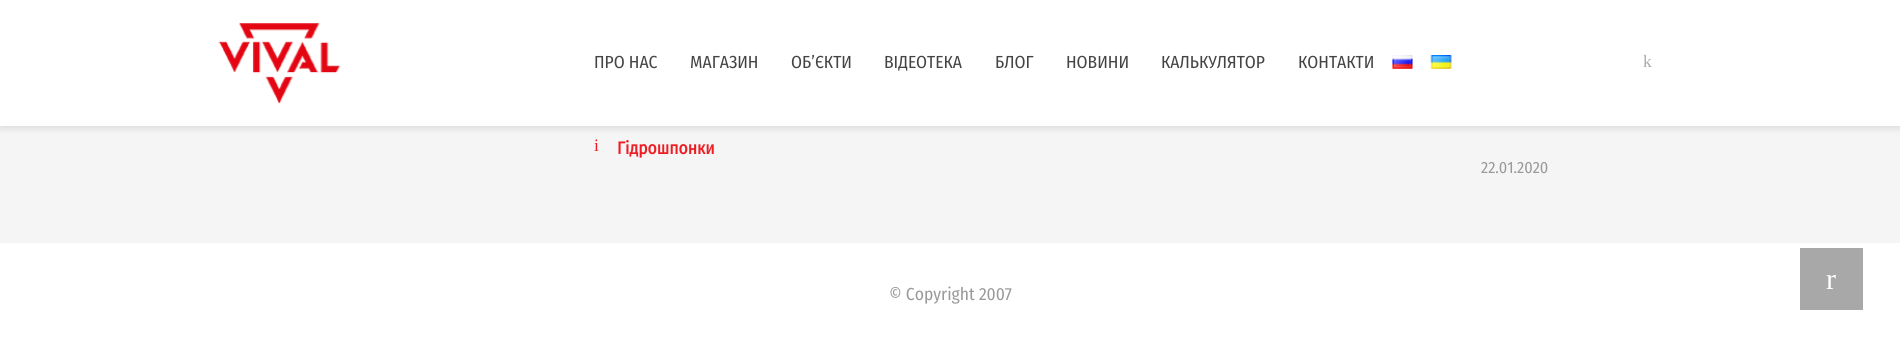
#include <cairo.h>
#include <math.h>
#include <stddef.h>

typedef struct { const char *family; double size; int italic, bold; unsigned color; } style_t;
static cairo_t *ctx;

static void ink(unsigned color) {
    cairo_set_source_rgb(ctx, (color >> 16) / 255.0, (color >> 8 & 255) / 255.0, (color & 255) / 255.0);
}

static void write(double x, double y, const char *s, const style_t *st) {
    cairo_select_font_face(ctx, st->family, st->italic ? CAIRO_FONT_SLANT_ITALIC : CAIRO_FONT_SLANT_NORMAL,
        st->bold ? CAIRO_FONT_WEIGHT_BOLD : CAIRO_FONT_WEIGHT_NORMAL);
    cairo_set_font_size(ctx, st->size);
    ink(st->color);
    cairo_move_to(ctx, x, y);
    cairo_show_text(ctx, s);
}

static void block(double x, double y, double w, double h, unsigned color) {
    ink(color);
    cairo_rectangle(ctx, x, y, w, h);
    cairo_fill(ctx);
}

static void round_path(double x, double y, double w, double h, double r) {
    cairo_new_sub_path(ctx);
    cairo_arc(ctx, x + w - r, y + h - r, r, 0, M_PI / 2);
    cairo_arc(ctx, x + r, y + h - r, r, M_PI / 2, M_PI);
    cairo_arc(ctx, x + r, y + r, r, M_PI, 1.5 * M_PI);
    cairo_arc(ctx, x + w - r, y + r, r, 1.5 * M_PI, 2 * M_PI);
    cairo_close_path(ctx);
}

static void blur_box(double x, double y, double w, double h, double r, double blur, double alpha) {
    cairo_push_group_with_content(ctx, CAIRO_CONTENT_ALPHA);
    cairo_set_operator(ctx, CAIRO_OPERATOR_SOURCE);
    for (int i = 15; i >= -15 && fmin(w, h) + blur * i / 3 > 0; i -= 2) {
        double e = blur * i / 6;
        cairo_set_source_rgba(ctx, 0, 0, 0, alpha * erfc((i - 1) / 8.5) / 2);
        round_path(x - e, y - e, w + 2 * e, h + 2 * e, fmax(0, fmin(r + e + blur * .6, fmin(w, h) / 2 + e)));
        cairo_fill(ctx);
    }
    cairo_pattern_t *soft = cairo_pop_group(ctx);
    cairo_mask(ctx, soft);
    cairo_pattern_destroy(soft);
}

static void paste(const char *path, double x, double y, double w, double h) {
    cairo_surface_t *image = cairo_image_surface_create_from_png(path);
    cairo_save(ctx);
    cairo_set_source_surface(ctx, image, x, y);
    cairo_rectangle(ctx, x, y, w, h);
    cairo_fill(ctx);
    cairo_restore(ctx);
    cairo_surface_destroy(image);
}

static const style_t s1 = {"Fira Sans Condensed", 17.5, 0, 0, 0x444444};
static const style_t s2 = {"Liberation Serif", 17.5, 0, 0, 0xaaaaaa};
static const style_t s3 = {"Liberation Serif", 17.5, 0, 0, 0xee1d23};
static const style_t s4 = {"Fira Sans Condensed", 17.5, 0, 1, 0xee1d23};
static const style_t s5 = {"Fira Sans Condensed", 16.25, 0, 0, 0x999999};
static const style_t s6 = {"Fira Sans Condensed", 17.5, 0, 0, 0x999999};
static const style_t s7 = {"Liberation Serif", 30, 0, 0, 0xffffff};

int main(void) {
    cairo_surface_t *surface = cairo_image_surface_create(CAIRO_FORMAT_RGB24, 1900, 347);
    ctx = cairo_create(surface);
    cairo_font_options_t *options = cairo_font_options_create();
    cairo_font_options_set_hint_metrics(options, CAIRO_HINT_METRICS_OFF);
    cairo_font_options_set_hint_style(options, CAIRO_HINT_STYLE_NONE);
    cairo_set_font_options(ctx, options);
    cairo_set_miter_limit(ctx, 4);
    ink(0xffffff);
    cairo_paint(ctx);
    block(0, 126, 1900, 117, 0xf5f5f5);
    ink(0x000000);
    blur_box(0, 3, 1900, 126, 0, 3, 0.1);
    block(0, 0, 1900, 126, 0xffffff);
    paste("pic1.png", 218, 23, 123, 81);
    write(594, 68, "ПРО НАС", &s1);
    write(690, 68, "МАГАЗИН", &s1);
    write(791, 68, "ОБ’ЄКТИ", &s1);
    write(884, 68, "ВІДЕОТЕКА", &s1);
    write(995, 68, "БЛОГ", &s1);
    write(1066, 68, "НОВИНИ", &s1);
    write(1161, 68, "КАЛЬКУЛЯТОР", &s1);
    write(1298, 68, "КОНТАКТИ", &s1);
    paste("pic2.png", 1392, 55, 21, 14);
    paste("pic3.png", 1430, 55, 22, 14);
    write(1643, 67, "k", &s2);
    write(594, 151, "i", &s3);
    write(617, 154, "Гідрошпонки", &s4);
    write(1481, 173, "22.01.2020", &s5);
    write(889, 300, "© Copyright 2007", &s6);
    block(1800, 248, 63, 62, 0xa8a8a9);
    write(1826, 289, "r", &s7);
    cairo_surface_write_to_png(surface, "screenshot.png");
    cairo_font_options_destroy(options);
    cairo_destroy(ctx);
    cairo_surface_destroy(surface);
    return 0;
}
